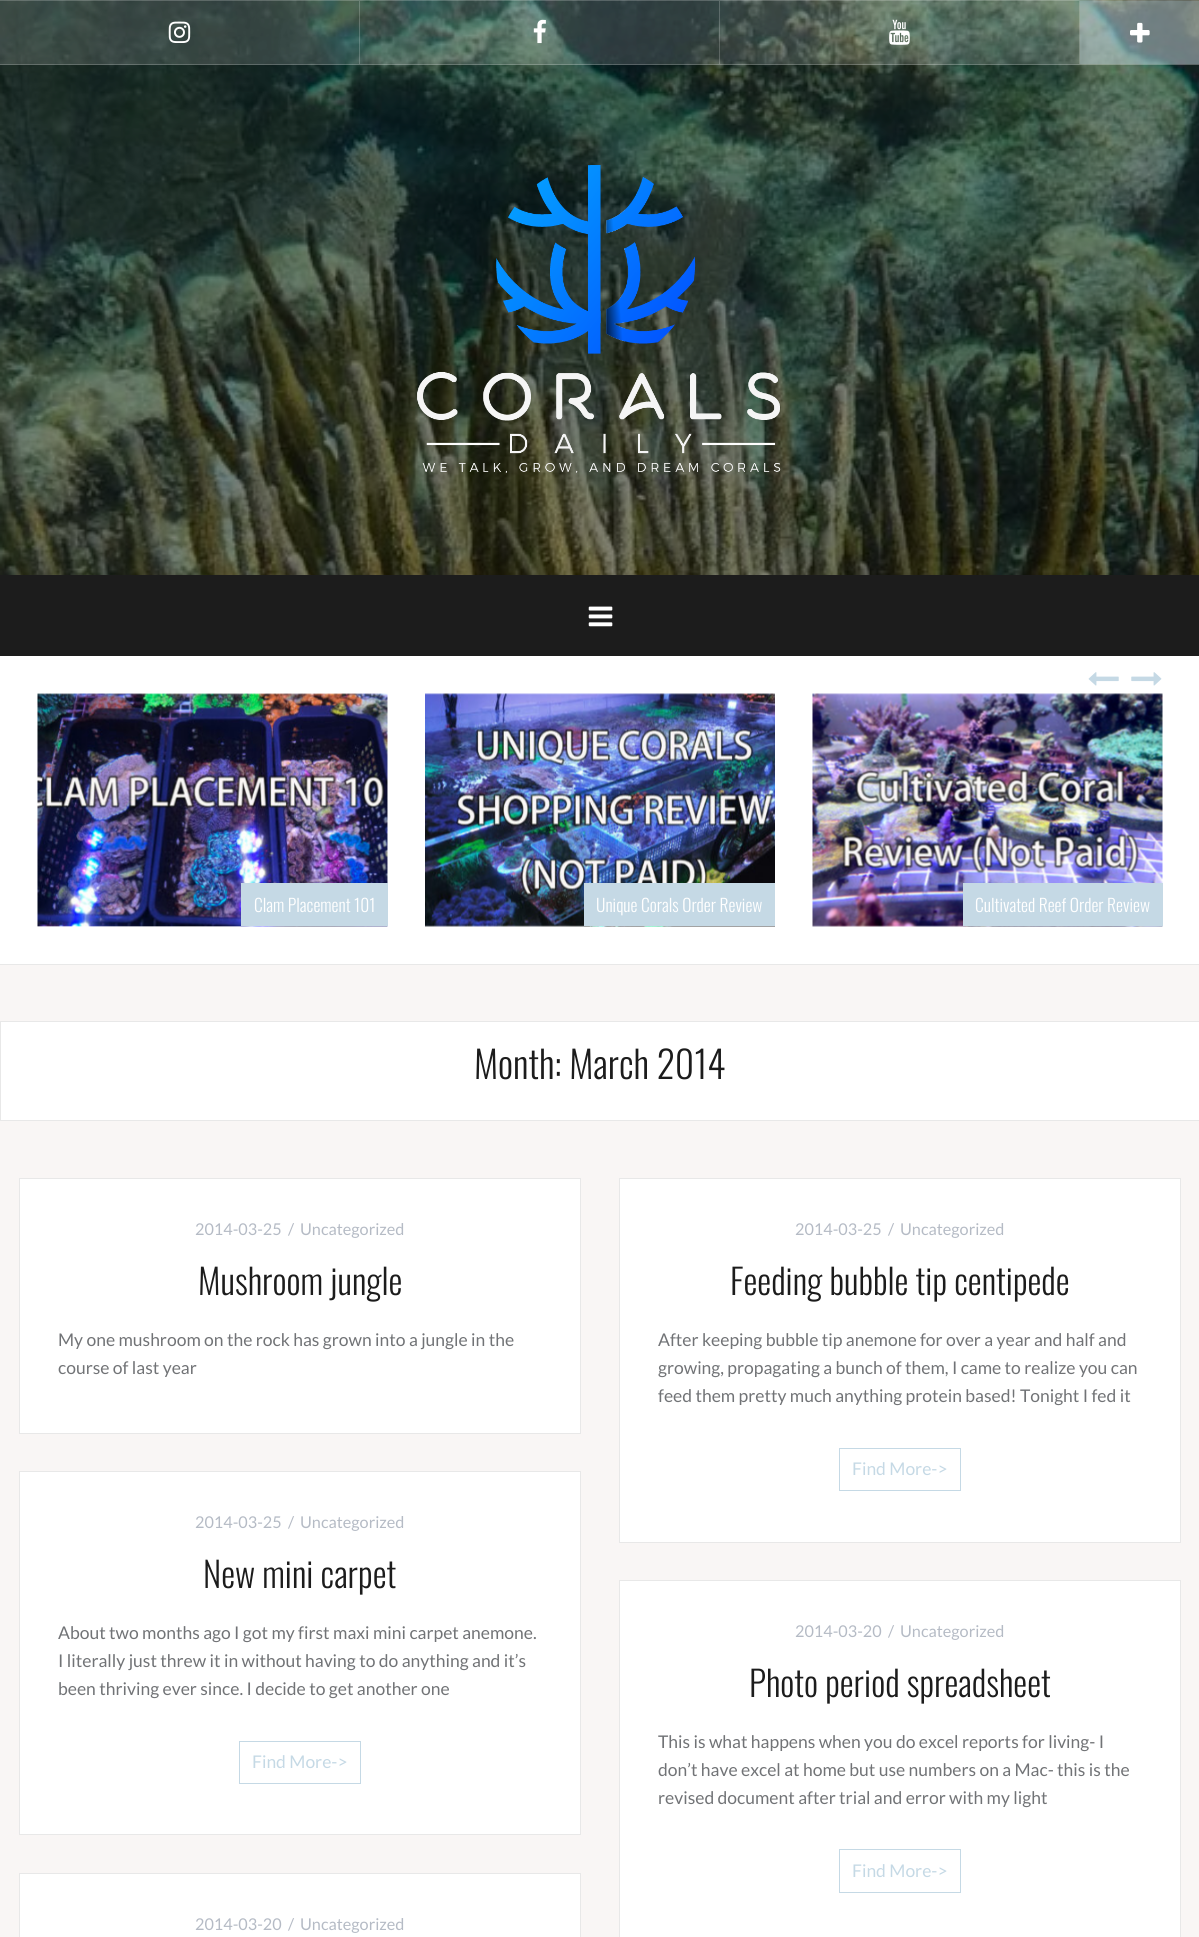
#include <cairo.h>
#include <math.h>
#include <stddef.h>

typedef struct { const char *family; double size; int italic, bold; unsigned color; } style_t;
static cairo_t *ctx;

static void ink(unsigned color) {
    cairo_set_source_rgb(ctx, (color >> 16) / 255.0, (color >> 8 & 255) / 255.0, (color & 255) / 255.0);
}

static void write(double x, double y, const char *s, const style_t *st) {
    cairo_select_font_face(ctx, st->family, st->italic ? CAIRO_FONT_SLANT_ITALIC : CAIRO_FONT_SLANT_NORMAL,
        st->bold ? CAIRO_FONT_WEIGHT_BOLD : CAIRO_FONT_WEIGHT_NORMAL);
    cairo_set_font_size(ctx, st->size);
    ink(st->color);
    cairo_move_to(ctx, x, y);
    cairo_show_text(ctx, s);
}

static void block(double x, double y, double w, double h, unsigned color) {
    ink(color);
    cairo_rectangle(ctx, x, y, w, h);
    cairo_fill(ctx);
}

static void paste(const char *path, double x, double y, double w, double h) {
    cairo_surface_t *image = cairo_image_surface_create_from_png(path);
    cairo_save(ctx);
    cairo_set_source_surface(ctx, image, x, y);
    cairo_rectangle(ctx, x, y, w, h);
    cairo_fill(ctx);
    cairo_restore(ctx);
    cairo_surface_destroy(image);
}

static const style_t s1 = {"Oswald Light", 17.5, 0, 0, 0xffffff};
static const style_t s2 = {"Oswald Light", 37.5, 0, 0, 0x1c1c1c};
static const style_t s3 = {"Lato", 16.25, 0, 0, 0xb5bbc5};
static const style_t s4 = {"Oswald Light", 35, 0, 0, 0x1c1c1c};
static const style_t s5 = {"Lato", 17.5, 0, 0, 0x717376};
static const style_t s6 = {"Lato", 17.5, 0, 0, 0xc5d9e5};

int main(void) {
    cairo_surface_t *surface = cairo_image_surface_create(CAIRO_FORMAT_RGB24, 1199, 1937);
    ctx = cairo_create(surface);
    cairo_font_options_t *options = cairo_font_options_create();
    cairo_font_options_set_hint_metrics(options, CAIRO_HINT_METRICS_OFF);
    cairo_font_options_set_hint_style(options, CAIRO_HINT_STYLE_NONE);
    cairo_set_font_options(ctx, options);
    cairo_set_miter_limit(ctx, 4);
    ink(0xf9f6f5);
    cairo_paint(ctx);
    paste("pic1.png", 0, 0, 1199, 575);
    cairo_set_source_rgba(ctx, 1, 1, 1, 0.15);
    cairo_rectangle(ctx, 0, 0, 1199, 65);
    cairo_fill(ctx);
    cairo_set_source_rgba(ctx, 1, 1, 1, 0.2);
    cairo_rectangle(ctx, 0, 0, 1199, 1);
    cairo_fill(ctx);
    cairo_rectangle(ctx, 0, 64, 1199, 1);
    cairo_fill(ctx);
    cairo_rectangle(ctx, 359, 1, 1, 63);
    cairo_fill(ctx);
    paste("pic2.png", 168, 21, 23, 22);
    cairo_rectangle(ctx, 719, 1, 1, 63);
    cairo_fill(ctx);
    paste("pic3.png", 533, 19, 13, 25);
    cairo_rectangle(ctx, 1079, 1, 1, 63);
    cairo_fill(ctx);
    paste("pic4.png", 889, 19, 21, 26);
    cairo_set_source_rgba(ctx, 0.773, 0.851, 0.898, 0.4);
    cairo_rectangle(ctx, 1080, 1, 119, 63);
    cairo_fill(ctx);
    paste("pic5.png", 1130, 22, 20, 21);
    paste("pic6.png", 417, 165, 364, 308);
    block(0, 575, 1199, 81, 0x1c1c1c);
    paste("pic7.png", 588, 606, 25, 21);
    block(0, 656, 1199, 308, 0xffffff);
    block(0, 964, 1199, 1, 0xe8e8e8);
    paste("pic8.png", 1088, 672, 31, 14);
    paste("pic9.png", 1131, 672, 31, 14);
    paste("pic10.png", 37, 693, 351, 234);
    block(241, 883, 147, 43, 0xc5d9e5);
    write(254, 912, "Clam Placement 101", &s1);
    paste("pic11.png", 425, 693, 350, 234);
    block(584, 883, 191, 43, 0xc5d9e5);
    write(596, 912, "Unique Corals Order Review", &s1);
    paste("pic12.png", 812, 693, 351, 234);
    block(963, 883, 200, 43, 0xc5d9e5);
    write(975, 912, "Cultivated Reef Order Review", &s1);
    cairo_rectangle(ctx, 0.5, 1021.5, 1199, 99);
    cairo_fill_preserve(ctx);
    ink(0xe8e8e8);
    cairo_set_line_width(ctx, 1);
    cairo_stroke(ctx);
    write(474, 1079, "Month: March 2014", &s2);
    ink(0xffffff);
    cairo_rectangle(ctx, 19.5, 1178.5, 561, 255);
    cairo_fill_preserve(ctx);
    ink(0xe8e8e8);
    cairo_stroke(ctx);
    write(195, 1235, "2014-03-25", &s3);
    write(288, 1235, "/", &s3);
    write(300, 1235, "Uncategorized", &s3);
    write(198, 1295, "Mushroom jungle", &s4);
    write(58, 1346, "My one mushroom on the rock has grown into a jungle in the", &s5);
    write(58, 1374, "course of last year", &s5);
    ink(0xffffff);
    cairo_rectangle(ctx, 619.5, 1178.5, 561, 364);
    cairo_fill_preserve(ctx);
    ink(0xe8e8e8);
    cairo_stroke(ctx);
    write(795, 1235, "2014-03-25", &s3);
    write(888, 1235, "/", &s3);
    write(900, 1235, "Uncategorized", &s3);
    write(730, 1295, "Feeding bubble tip centipede", &s4);
    write(658, 1346, "After keeping bubble tip anemone for over a year and half and", &s5);
    write(658, 1374, "growing, propagating a bunch of them, I came to realize you can", &s5);
    write(658, 1402, "feed them pretty much anything protein based! Tonight I fed it", &s5);
    cairo_rectangle(ctx, 839.5, 1448.5, 121, 42);
    ink(0xc5d9e5);
    cairo_stroke(ctx);
    write(852, 1475, "Find More->", &s6);
    ink(0xffffff);
    cairo_rectangle(ctx, 19.5, 1471.5, 561, 363);
    cairo_fill_preserve(ctx);
    ink(0xe8e8e8);
    cairo_stroke(ctx);
    write(195, 1528, "2014-03-25", &s3);
    write(288, 1528, "/", &s3);
    write(300, 1528, "Uncategorized", &s3);
    write(203, 1588, "New mini carpet", &s4);
    write(58, 1639, "About two months ago I got my first maxi mini carpet anemone.", &s5);
    write(58, 1667, "I literally just threw it in without having to do anything and it’s", &s5);
    write(58, 1695, "been thriving ever since. I decide to get another one", &s5);
    cairo_rectangle(ctx, 239.5, 1741.5, 121, 42);
    ink(0xc5d9e5);
    cairo_stroke(ctx);
    write(252, 1768, "Find More->", &s6);
    ink(0xffffff);
    cairo_rectangle(ctx, 619.5, 1580.5, 561, 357);
    cairo_fill_preserve(ctx);
    ink(0xe8e8e8);
    cairo_stroke(ctx);
    write(795, 1637, "2014-03-20", &s3);
    write(888, 1637, "/", &s3);
    write(900, 1637, "Uncategorized", &s3);
    write(749, 1697, "Photo period spreadsheet", &s4);
    write(658, 1748, "This is what happens when you do excel reports for living- I", &s5);
    write(658, 1776, "don’t have excel at home but use numbers on a Mac- this is the", &s5);
    write(658, 1804, "revised document after trial and error with my light", &s5);
    cairo_rectangle(ctx, 839.5, 1849.5, 121, 43);
    ink(0xc5d9e5);
    cairo_stroke(ctx);
    write(852, 1877, "Find More->", &s6);
    ink(0xffffff);
    cairo_rectangle(ctx, 19.5, 1873.5, 561, 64);
    cairo_fill_preserve(ctx);
    ink(0xe8e8e8);
    cairo_stroke(ctx);
    write(195, 1930, "2014-03-20", &s3);
    write(288, 1930, "/", &s3);
    write(300, 1930, "Uncategorized", &s3);
    cairo_surface_write_to_png(surface, "screenshot.png");
    cairo_font_options_destroy(options);
    cairo_destroy(ctx);
    cairo_surface_destroy(surface);
    return 0;
}
